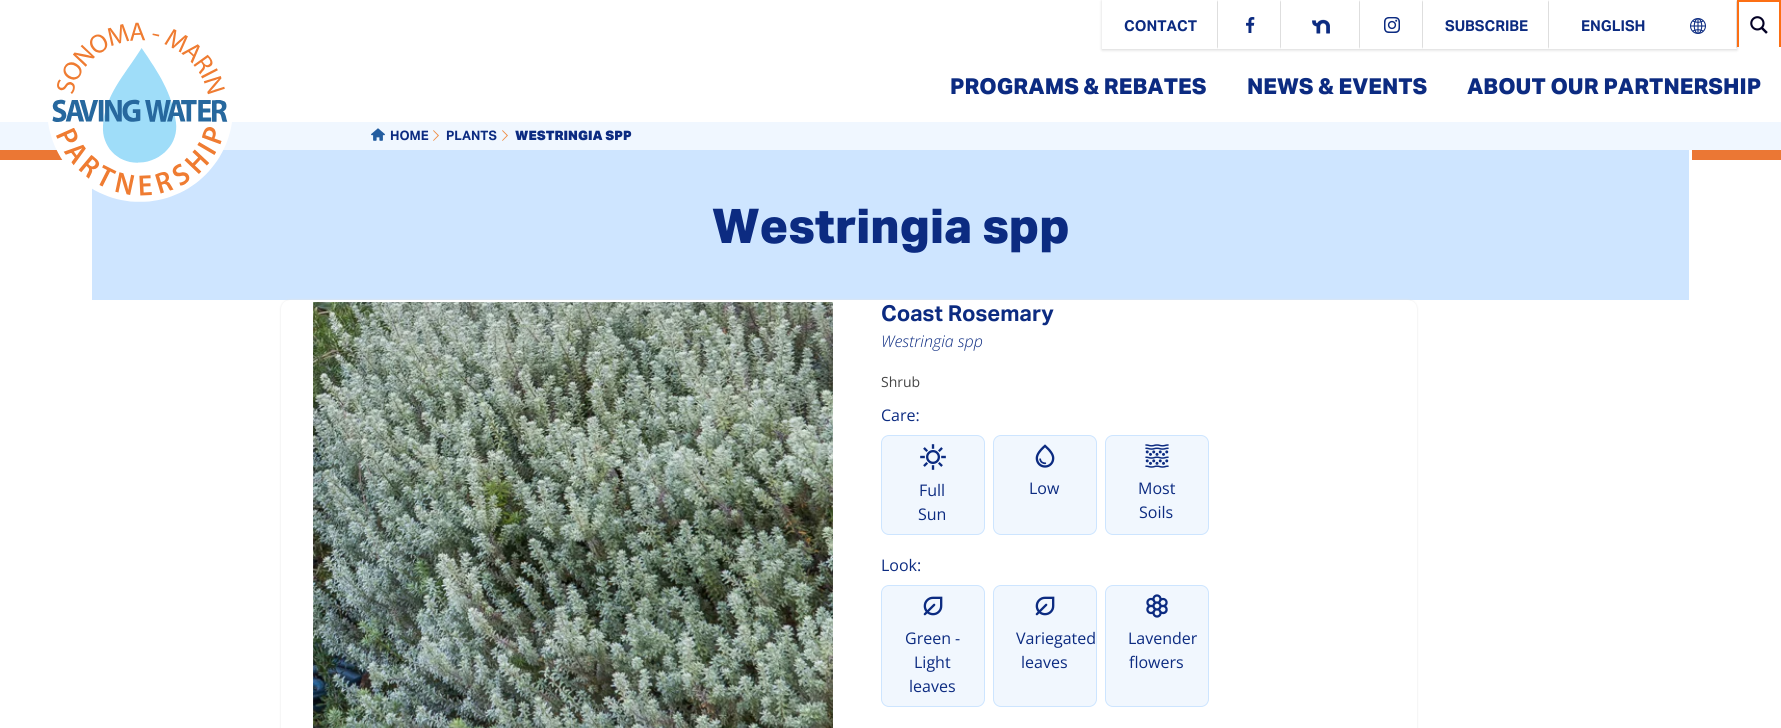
#include <cairo.h>
#include <math.h>
#include <stddef.h>

typedef struct { const char *family; double size; int italic, bold; unsigned color; } style_t;
static cairo_t *ctx;

static void ink(unsigned color) {
    cairo_set_source_rgb(ctx, (color >> 16) / 255.0, (color >> 8 & 255) / 255.0, (color & 255) / 255.0);
}

static void write(double x, double y, const char *s, const style_t *st) {
    cairo_select_font_face(ctx, st->family, st->italic ? CAIRO_FONT_SLANT_ITALIC : CAIRO_FONT_SLANT_NORMAL,
        st->bold ? CAIRO_FONT_WEIGHT_BOLD : CAIRO_FONT_WEIGHT_NORMAL);
    cairo_set_font_size(ctx, st->size);
    ink(st->color);
    cairo_move_to(ctx, x, y);
    cairo_show_text(ctx, s);
}

static void block(double x, double y, double w, double h, unsigned color) {
    ink(color);
    cairo_rectangle(ctx, x, y, w, h);
    cairo_fill(ctx);
}

static void round_path(double x, double y, double w, double h, double r) {
    cairo_new_sub_path(ctx);
    cairo_arc(ctx, x + w - r, y + h - r, r, 0, M_PI / 2);
    cairo_arc(ctx, x + r, y + h - r, r, M_PI / 2, M_PI);
    cairo_arc(ctx, x + r, y + r, r, M_PI, 1.5 * M_PI);
    cairo_arc(ctx, x + w - r, y + r, r, 1.5 * M_PI, 2 * M_PI);
    cairo_close_path(ctx);
}

static void blur_box(double x, double y, double w, double h, double r, double blur, double alpha) {
    cairo_push_group_with_content(ctx, CAIRO_CONTENT_ALPHA);
    cairo_set_operator(ctx, CAIRO_OPERATOR_SOURCE);
    for (int i = 15; i >= -15 && fmin(w, h) + blur * i / 3 > 0; i -= 2) {
        double e = blur * i / 6;
        cairo_set_source_rgba(ctx, 0, 0, 0, alpha * erfc((i - 1) / 8.5) / 2);
        round_path(x - e, y - e, w + 2 * e, h + 2 * e, fmax(0, fmin(r + e + blur * .6, fmin(w, h) / 2 + e)));
        cairo_fill(ctx);
    }
    cairo_pattern_t *soft = cairo_pop_group(ctx);
    cairo_mask(ctx, soft);
    cairo_pattern_destroy(soft);
}

static void paste(const char *path, double x, double y, double w, double h) {
    cairo_surface_t *image = cairo_image_surface_create_from_png(path);
    cairo_save(ctx);
    cairo_set_source_surface(ctx, image, x, y);
    cairo_rectangle(ctx, x, y, w, h);
    cairo_fill(ctx);
    cairo_restore(ctx);
    cairo_surface_destroy(image);
}

static const style_t s1 = {"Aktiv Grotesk", 15, 0, 1, 0x0c2b81};
static const style_t s2 = {"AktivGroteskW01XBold", 22, 0, 1, 0x0c2b81};
static const style_t s3 = {"Aktiv Grotesk", 13, 0, 1, 0x0c2b81};
static const style_t s4 = {"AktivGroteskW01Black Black", 13, 0, 0, 0x0c2b81};
static const style_t s5 = {"AktivGroteskW01XBold", 48, 0, 1, 0x0c2b81};
static const style_t s6 = {"Aktiv Grotesk", 22, 0, 1, 0x0c2b81};
static const style_t s7 = {"Open Sans Light", 16, 1, 0, 0x0c2b81};
static const style_t s8 = {"Open Sans", 14, 0, 0, 0x464646};
static const style_t s9 = {"Open Sans", 16, 0, 0, 0x0c2b81};

int main(void) {
    cairo_surface_t *surface = cairo_image_surface_create(CAIRO_FORMAT_RGB24, 1781, 728);
    ctx = cairo_create(surface);
    cairo_font_options_t *options = cairo_font_options_create();
    cairo_font_options_set_hint_metrics(options, CAIRO_HINT_METRICS_OFF);
    cairo_font_options_set_hint_style(options, CAIRO_HINT_STYLE_NONE);
    cairo_set_font_options(ctx, options);
    cairo_set_miter_limit(ctx, 4);
    ink(0xffffff);
    cairo_paint(ctx);
    block(0, 150, 1781, 10, 0xeb7734);
    block(0, 122, 1781, 28, 0xf0f7ff);
    block(92, 150, 1597, 150, 0xcee5ff);
    paste("pic1.png", 48, 22, 184, 180);
    cairo_save(ctx);
    cairo_set_fill_rule(ctx, CAIRO_FILL_RULE_EVEN_ODD);
    cairo_new_path(ctx);
    cairo_move_to(ctx, 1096, 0);
    cairo_line_to(ctx, 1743, 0);
    cairo_line_to(ctx, 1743, 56);
    cairo_line_to(ctx, 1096, 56);
    cairo_close_path(ctx);
    cairo_move_to(ctx, 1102, 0);
    cairo_line_to(ctx, 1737, 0);
    cairo_line_to(ctx, 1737, 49);
    cairo_line_to(ctx, 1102, 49);
    cairo_close_path(ctx);
    cairo_clip(ctx);
    ink(0x000000);
    blur_box(1102, 1, 635, 49, 0, 1.5, 0.16);
    cairo_restore(ctx);
    ink(0xdedede);
    cairo_new_path(ctx);
    cairo_move_to(ctx, 1218, 0);
    cairo_line_to(ctx, 1218, 49);
    cairo_line_to(ctx, 1217, 47);
    cairo_line_to(ctx, 1217, 2);
    cairo_close_path(ctx);
    cairo_fill(ctx);
    write(1124, 31, "CONTACT", &s1);
    ink(0xdedede);
    cairo_new_path(ctx);
    cairo_move_to(ctx, 1281, 0);
    cairo_line_to(ctx, 1281, 49);
    cairo_line_to(ctx, 1280, 47);
    cairo_line_to(ctx, 1280, 2);
    cairo_close_path(ctx);
    cairo_fill(ctx);
    paste("pic2.png", 1246, 17, 9, 16);
    cairo_new_path(ctx);
    cairo_move_to(ctx, 1360, 0);
    cairo_line_to(ctx, 1360, 49);
    cairo_line_to(ctx, 1359, 47);
    cairo_line_to(ctx, 1359, 2);
    cairo_close_path(ctx);
    cairo_fill(ctx);
    paste("pic3.png", 1312, 19, 18, 15);
    cairo_new_path(ctx);
    cairo_move_to(ctx, 1423, 0);
    cairo_line_to(ctx, 1423, 49);
    cairo_line_to(ctx, 1422, 47);
    cairo_line_to(ctx, 1422, 2);
    cairo_close_path(ctx);
    cairo_fill(ctx);
    paste("pic4.png", 1384, 17, 16, 16);
    cairo_new_path(ctx);
    cairo_move_to(ctx, 1549, 0);
    cairo_line_to(ctx, 1549, 49);
    cairo_line_to(ctx, 1548, 47);
    cairo_line_to(ctx, 1548, 2);
    cairo_close_path(ctx);
    cairo_fill(ctx);
    write(1445, 31, "SUBSCRIBE", &s1);
    ink(0xdedede);
    cairo_new_path(ctx);
    cairo_move_to(ctx, 1737, 0);
    cairo_line_to(ctx, 1737, 49);
    cairo_line_to(ctx, 1736, 47);
    cairo_line_to(ctx, 1736, 2);
    cairo_close_path(ctx);
    cairo_fill(ctx);
    paste("pic5.png", 1690, 18, 16, 16);
    write(1581, 31, "ENGLISH", &s1);
    cairo_save(ctx);
    cairo_rectangle(ctx, 1737, 0, 44, 47);
    cairo_clip(ctx);
    cairo_rectangle(ctx, 1738, 1, 42, 47);
    ink(0xfc6f14);
    cairo_stroke(ctx);
    cairo_restore(ctx);
    paste("pic6.png", 1750, 16, 18, 18);
    write(950, 94, "PROGRAMS & REBATES", &s2);
    write(1247, 94, "NEWS & EVENTS", &s2);
    write(1467, 94, "ABOUT OUR PARTNERSHIP", &s2);
    paste("pic7.png", 371, 128, 14, 13);
    write(390, 140, "HOME", &s3);
    paste("pic8.png", 433, 130, 6, 11);
    write(446, 140, "PLANTS", &s3);
    paste("pic8.png", 502, 130, 6, 11);
    write(515, 140, "WESTRINGIA SPP", &s4);
    block(1689, 150, 3, 10, 0xffffff);
    write(712, 243, "Westringia spp", &s5);
    ink(0xe4e4e4);
    blur_box(281, 300, 1136, 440, 9, 1, 1);
    ink(0xffffff);
    round_path(281, 300, 1136, 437, 9);
    cairo_fill(ctx);
    paste("pic9.png", 313, 302, 520, 426);
    write(881, 321, "Coast Rosemary", &s6);
    write(881, 347, "Westringia spp", &s7);
    write(881, 387, "Shrub", &s8);
    write(881, 421, "Care:", &s9);
    ink(0xf1f7fe);
    round_path(881.5, 435.5, 103, 99, 7.5);
    cairo_fill_preserve(ctx);
    ink(0xcde5ff);
    cairo_set_line_width(ctx, 1);
    cairo_stroke(ctx);
    paste("pic10.png", 920, 444, 26, 26);
    write(919, 496, "Full", &s9);
    write(918, 520, "Sun", &s9);
    ink(0xf1f7fe);
    round_path(993.5, 435.5, 103, 99, 7.5);
    cairo_fill_preserve(ctx);
    ink(0xcde5ff);
    cairo_stroke(ctx);
    paste("pic11.png", 1035, 444, 20, 24);
    write(1029, 494, "Low", &s9);
    ink(0xf1f7fe);
    round_path(1105.5, 435.5, 103, 99, 7.5);
    cairo_fill_preserve(ctx);
    ink(0xcde5ff);
    cairo_stroke(ctx);
    paste("pic12.png", 1145, 444, 24, 24);
    write(1138, 494, "Most", &s9);
    write(1139, 518, "Soils", &s9);
    write(881, 571, "Look:", &s9);
    ink(0xf1f7fe);
    round_path(881.5, 585.5, 103, 121, 7.5);
    cairo_fill_preserve(ctx);
    ink(0xcde5ff);
    cairo_stroke(ctx);
    paste("pic13.png", 923, 596, 20, 20);
    write(905, 644, "Green -", &s9);
    write(914, 668, "Light", &s9);
    write(909, 692, "leaves", &s9);
    ink(0xf1f7fe);
    round_path(993.5, 585.5, 103, 121, 7.5);
    cairo_fill_preserve(ctx);
    ink(0xcde5ff);
    cairo_stroke(ctx);
    paste("pic13.png", 1035, 596, 20, 20);
    write(1016, 644, "Variegated", &s9);
    write(1021, 668, "leaves", &s9);
    ink(0xf1f7fe);
    round_path(1105.5, 585.5, 103, 121, 7.5);
    cairo_fill_preserve(ctx);
    ink(0xcde5ff);
    cairo_stroke(ctx);
    paste("pic14.png", 1146, 594, 22, 24);
    write(1128, 644, "Lavender", &s9);
    write(1129, 668, "flowers", &s9);
    cairo_surface_write_to_png(surface, "screenshot.png");
    cairo_font_options_destroy(options);
    cairo_destroy(ctx);
    cairo_surface_destroy(surface);
    return 0;
}
